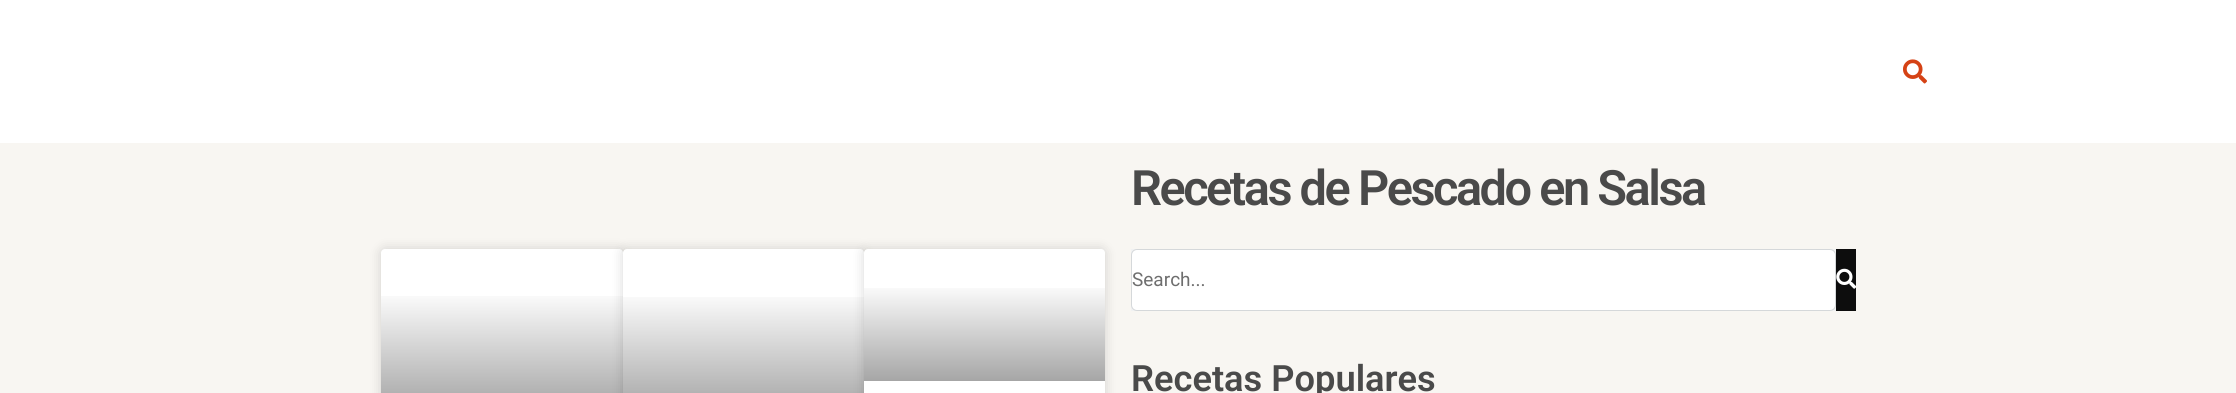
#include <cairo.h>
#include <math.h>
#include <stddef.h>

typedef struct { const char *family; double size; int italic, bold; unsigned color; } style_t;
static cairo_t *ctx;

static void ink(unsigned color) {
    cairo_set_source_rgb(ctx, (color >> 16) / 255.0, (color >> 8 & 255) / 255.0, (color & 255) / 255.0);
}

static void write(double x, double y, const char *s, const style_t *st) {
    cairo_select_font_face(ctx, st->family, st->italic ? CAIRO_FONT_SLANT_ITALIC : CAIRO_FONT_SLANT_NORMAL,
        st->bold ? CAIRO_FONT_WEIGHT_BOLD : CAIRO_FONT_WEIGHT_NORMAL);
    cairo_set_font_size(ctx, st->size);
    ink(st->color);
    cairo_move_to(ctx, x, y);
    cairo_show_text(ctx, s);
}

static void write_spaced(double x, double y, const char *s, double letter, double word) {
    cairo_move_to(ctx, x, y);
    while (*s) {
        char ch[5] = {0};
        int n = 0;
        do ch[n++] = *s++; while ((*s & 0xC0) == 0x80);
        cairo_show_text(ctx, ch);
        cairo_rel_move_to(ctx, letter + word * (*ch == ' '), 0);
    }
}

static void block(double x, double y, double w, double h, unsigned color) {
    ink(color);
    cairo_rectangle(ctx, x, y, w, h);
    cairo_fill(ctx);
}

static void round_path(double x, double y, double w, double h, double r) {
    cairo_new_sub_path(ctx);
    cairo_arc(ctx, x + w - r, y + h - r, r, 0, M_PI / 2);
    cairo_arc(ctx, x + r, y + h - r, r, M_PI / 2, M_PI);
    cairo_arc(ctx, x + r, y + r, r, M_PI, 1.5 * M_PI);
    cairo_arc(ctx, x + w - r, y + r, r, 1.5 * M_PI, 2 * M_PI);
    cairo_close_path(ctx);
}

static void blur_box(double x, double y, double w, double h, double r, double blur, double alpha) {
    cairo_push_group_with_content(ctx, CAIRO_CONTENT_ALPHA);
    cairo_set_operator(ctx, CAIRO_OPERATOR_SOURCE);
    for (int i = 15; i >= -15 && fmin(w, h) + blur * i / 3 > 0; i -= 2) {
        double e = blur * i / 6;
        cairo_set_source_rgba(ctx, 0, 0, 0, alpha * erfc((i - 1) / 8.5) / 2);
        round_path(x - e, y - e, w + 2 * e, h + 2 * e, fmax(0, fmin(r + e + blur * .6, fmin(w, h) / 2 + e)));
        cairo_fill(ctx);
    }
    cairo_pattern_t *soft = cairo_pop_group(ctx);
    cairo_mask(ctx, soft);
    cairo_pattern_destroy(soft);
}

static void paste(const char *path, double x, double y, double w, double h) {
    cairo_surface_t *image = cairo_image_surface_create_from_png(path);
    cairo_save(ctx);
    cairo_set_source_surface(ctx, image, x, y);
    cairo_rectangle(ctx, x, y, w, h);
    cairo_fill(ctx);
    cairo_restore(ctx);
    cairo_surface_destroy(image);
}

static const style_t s1 = {"Roboto", 19, 0, 0, 0x6e6e6e};
static const style_t s2 = {"Roboto SemiBold", 36.25, 0, 0, 0x4a4a4a};

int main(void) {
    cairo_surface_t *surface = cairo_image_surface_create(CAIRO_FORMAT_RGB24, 2236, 393);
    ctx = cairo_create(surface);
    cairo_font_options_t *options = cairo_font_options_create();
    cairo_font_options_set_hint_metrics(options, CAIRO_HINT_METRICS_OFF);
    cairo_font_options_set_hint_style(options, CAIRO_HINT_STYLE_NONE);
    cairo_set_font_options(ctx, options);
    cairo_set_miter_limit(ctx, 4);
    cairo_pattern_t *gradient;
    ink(0xf8f6f2);
    cairo_paint(ctx);
    block(0, 0, 2236, 143, 0xffffff);
    paste("pic1.png", 1903, 59, 24, 25);
    cairo_select_font_face(ctx, "Roboto SemiBold", CAIRO_FONT_SLANT_NORMAL, CAIRO_FONT_WEIGHT_NORMAL);
    cairo_set_font_size(ctx, 48.75);
    ink(0x4a4a4a);
    write_spaced(1131, 205, "Recetas de Pescado en Salsa", -2.5, 0);
    ink(0x000000);
    blur_box(381, 249, 242, 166, 4, 6, 0.15);
    ink(0xffffff);
    round_path(381, 249, 242, 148, 4);
    cairo_fill(ctx);
    gradient = cairo_pattern_create_linear(502, 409, 502, 249);
    cairo_pattern_add_color_stop_rgba(gradient, 0, 0, 0, 0, 0.35);
    cairo_pattern_add_color_stop_rgba(gradient, 0.75, 0, 0, 0, 0);
    cairo_set_source(ctx, gradient);
    cairo_pattern_destroy(gradient);
    cairo_rectangle(ctx, 381, 296, 242, 97);
    cairo_fill(ctx);
    ink(0x000000);
    blur_box(623, 249, 241, 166, 4, 6, 0.15);
    ink(0xffffff);
    round_path(623, 249, 241, 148, 4);
    cairo_fill(ctx);
    gradient = cairo_pattern_create_linear(743, 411, 743, 249);
    cairo_pattern_add_color_stop_rgba(gradient, 0, 0, 0, 0, 0.35);
    cairo_pattern_add_color_stop_rgba(gradient, 0.75, 0, 0, 0, 0);
    cairo_set_source(ctx, gradient);
    cairo_pattern_destroy(gradient);
    cairo_rectangle(ctx, 623, 297, 241, 96);
    cairo_fill(ctx);
    ink(0x000000);
    blur_box(864, 249, 241, 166, 4, 6, 0.15);
    ink(0xffffff);
    round_path(864, 249, 241, 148, 4);
    cairo_fill(ctx);
    gradient = cairo_pattern_create_linear(984, 381, 984, 249);
    cairo_pattern_add_color_stop_rgba(gradient, 0, 0, 0, 0, 0.35);
    cairo_pattern_add_color_stop_rgba(gradient, 0.75, 0, 0, 0, 0);
    cairo_set_source(ctx, gradient);
    cairo_pattern_destroy(gradient);
    cairo_rectangle(ctx, 864, 288, 241, 93);
    cairo_fill(ctx);
    block(1131, 249, 705, 62, 0xf1f2f3);
    ink(0xffffff);
    round_path(1131.5, 249.5, 704, 61, 5.5);
    cairo_fill_preserve(ctx);
    ink(0xd5d8da);
    cairo_set_line_width(ctx, 1);
    cairo_stroke(ctx);
    write(1132, 286, "Search...", &s1);
    block(1836, 249, 20, 62, 0x0d0d0d);
    paste("pic2.png", 1836, 268, 20, 21);
    write(1131, 391, "Recetas Populares", &s2);
    cairo_surface_write_to_png(surface, "screenshot.png");
    cairo_font_options_destroy(options);
    cairo_destroy(ctx);
    cairo_surface_destroy(surface);
    return 0;
}
